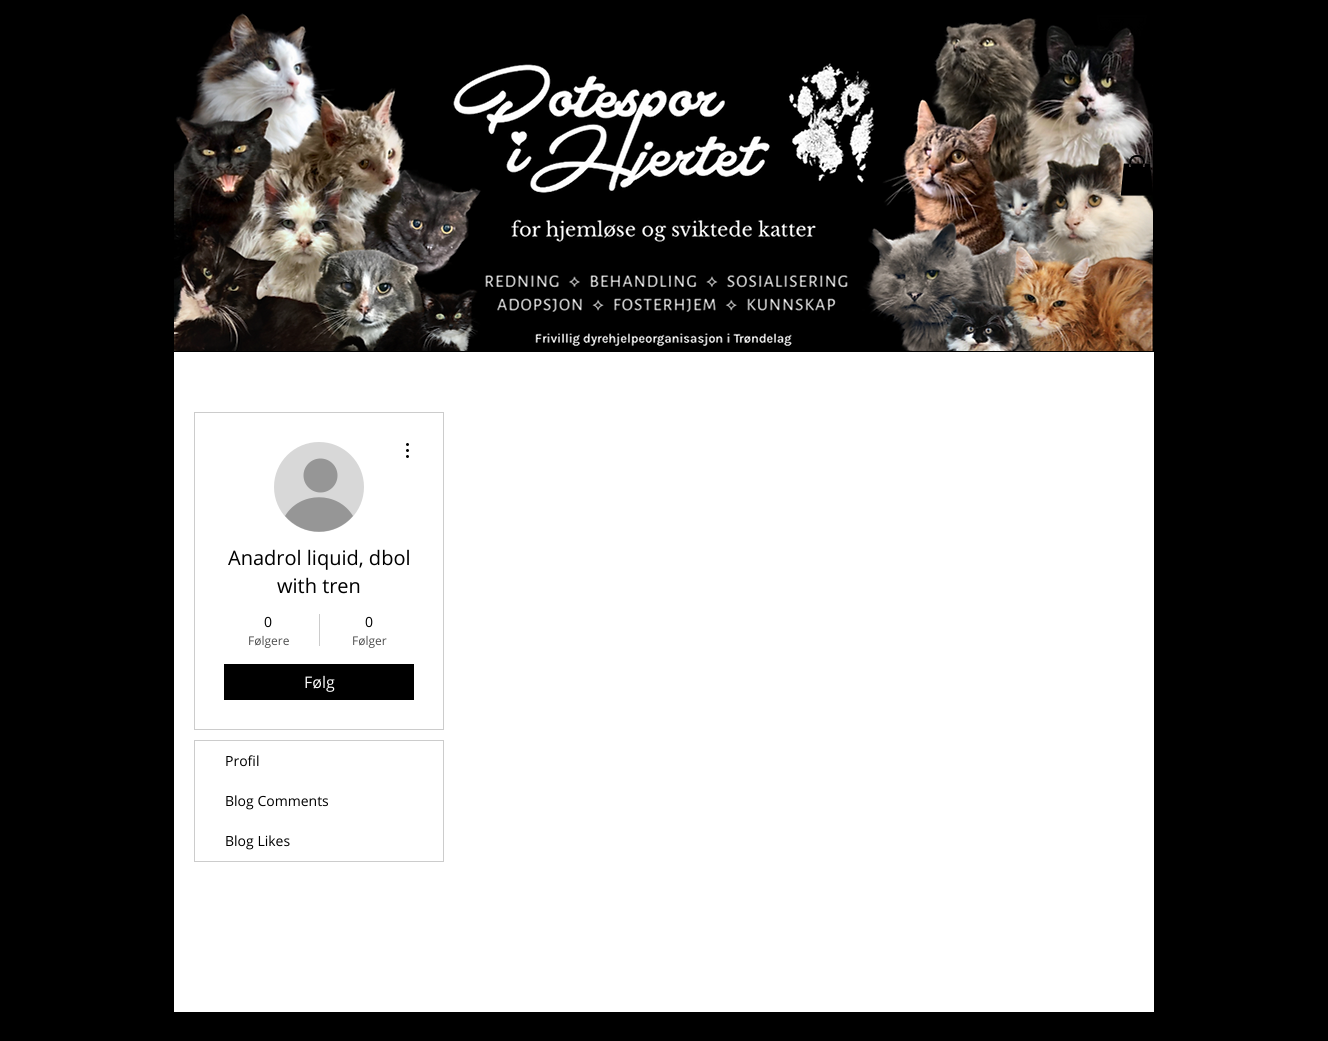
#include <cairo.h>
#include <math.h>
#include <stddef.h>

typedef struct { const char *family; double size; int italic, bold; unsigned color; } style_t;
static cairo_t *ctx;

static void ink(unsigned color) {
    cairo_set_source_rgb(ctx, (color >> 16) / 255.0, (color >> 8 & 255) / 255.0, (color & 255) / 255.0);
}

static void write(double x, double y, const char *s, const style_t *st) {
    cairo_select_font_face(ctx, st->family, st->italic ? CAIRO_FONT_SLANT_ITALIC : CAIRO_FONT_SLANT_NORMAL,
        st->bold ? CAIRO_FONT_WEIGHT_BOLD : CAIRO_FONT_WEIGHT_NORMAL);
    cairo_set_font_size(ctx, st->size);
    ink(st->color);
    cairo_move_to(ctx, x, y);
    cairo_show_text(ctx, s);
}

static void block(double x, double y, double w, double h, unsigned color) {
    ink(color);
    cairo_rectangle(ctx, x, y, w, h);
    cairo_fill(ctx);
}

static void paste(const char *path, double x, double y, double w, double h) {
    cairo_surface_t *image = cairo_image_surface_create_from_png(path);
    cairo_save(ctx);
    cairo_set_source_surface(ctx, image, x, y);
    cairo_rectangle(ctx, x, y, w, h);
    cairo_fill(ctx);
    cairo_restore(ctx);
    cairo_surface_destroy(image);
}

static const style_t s1 = {"Open Sans", 20, 0, 0, 0x000000};
static const style_t s2 = {"Open Sans", 14, 0, 0, 0x000000};
static const style_t s3 = {"Open Sans", 12, 0, 0, 0x4d4d4d};
static const style_t s4 = {"Open Sans", 16, 0, 0, 0xffffff};

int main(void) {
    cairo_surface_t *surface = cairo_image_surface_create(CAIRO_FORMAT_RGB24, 1328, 1041);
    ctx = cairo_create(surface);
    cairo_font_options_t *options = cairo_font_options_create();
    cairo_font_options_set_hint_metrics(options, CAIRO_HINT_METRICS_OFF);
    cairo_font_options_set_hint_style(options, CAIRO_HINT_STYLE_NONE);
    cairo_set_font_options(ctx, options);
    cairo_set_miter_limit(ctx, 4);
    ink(0x000000);
    cairo_paint(ctx);
    paste("pic1.png", 174, 13, 979, 338);
    paste("pic2.png", 1120, 155, 33, 41);
    block(174, 352, 980, 660, 0xffffff);
    cairo_rectangle(ctx, 194.5, 412.5, 249, 317);
    ink(0xcccccc);
    cairo_set_line_width(ctx, 1);
    cairo_stroke(ctx);
    ink(0xd8d8d8);
    cairo_arc(ctx, 319, 487, 45, 0, 2 * M_PI);
    cairo_fill(ctx);
    ink(0x969696);
    cairo_arc(ctx, 320.5, 475.5, 17, 0, 2 * M_PI);
    cairo_fill(ctx);
    cairo_new_path(ctx);
    cairo_move_to(ctx, 353, 516);
    cairo_curve_to(ctx, 335, 537, 303, 537, 285, 516);
    cairo_curve_to(ctx, 300, 491, 338, 491, 353, 516);
    cairo_close_path(ctx);
    cairo_fill(ctx);
    paste("pic3.png", 406, 443, 3, 15);
    write(228, 565, "Anadrol liquid, dbol", &s1);
    write(277, 593, "with tren", &s1);
    write(264, 627, "0", &s2);
    write(248, 645, "Følgere", &s3);
    block(319, 614, 1, 32, 0xcccccc);
    write(365, 627, "0", &s2);
    write(352, 645, "Følger", &s3);
    block(224, 664, 190, 36, 0x000000);
    write(304, 688, "Følg", &s4);
    cairo_rectangle(ctx, 194.5, 740.5, 249, 121);
    ink(0xcccccc);
    cairo_stroke(ctx);
    write(225, 766, "Profil", &s2);
    write(225, 806, "Blog Comments", &s2);
    write(225, 846, "Blog Likes", &s2);
    cairo_surface_write_to_png(surface, "screenshot.png");
    cairo_font_options_destroy(options);
    cairo_destroy(ctx);
    cairo_surface_destroy(surface);
    return 0;
}
